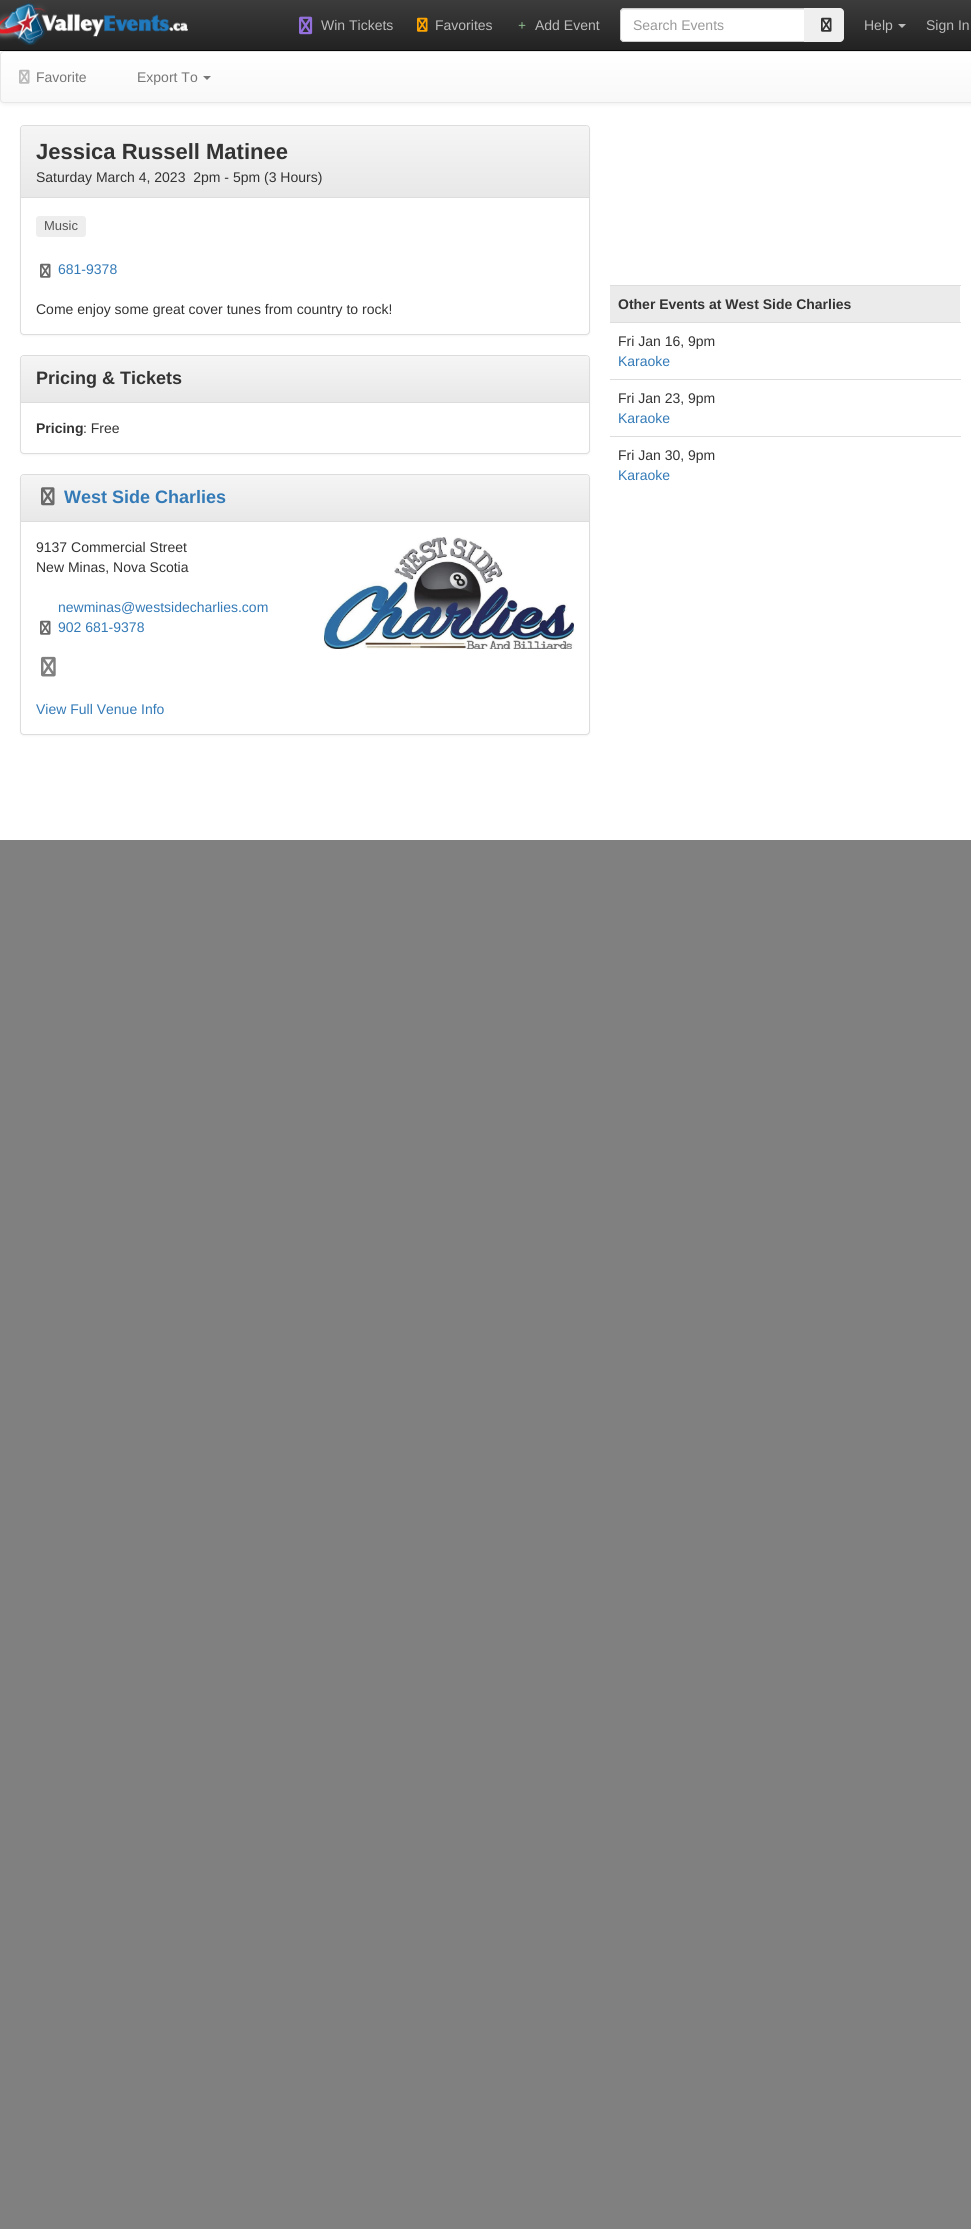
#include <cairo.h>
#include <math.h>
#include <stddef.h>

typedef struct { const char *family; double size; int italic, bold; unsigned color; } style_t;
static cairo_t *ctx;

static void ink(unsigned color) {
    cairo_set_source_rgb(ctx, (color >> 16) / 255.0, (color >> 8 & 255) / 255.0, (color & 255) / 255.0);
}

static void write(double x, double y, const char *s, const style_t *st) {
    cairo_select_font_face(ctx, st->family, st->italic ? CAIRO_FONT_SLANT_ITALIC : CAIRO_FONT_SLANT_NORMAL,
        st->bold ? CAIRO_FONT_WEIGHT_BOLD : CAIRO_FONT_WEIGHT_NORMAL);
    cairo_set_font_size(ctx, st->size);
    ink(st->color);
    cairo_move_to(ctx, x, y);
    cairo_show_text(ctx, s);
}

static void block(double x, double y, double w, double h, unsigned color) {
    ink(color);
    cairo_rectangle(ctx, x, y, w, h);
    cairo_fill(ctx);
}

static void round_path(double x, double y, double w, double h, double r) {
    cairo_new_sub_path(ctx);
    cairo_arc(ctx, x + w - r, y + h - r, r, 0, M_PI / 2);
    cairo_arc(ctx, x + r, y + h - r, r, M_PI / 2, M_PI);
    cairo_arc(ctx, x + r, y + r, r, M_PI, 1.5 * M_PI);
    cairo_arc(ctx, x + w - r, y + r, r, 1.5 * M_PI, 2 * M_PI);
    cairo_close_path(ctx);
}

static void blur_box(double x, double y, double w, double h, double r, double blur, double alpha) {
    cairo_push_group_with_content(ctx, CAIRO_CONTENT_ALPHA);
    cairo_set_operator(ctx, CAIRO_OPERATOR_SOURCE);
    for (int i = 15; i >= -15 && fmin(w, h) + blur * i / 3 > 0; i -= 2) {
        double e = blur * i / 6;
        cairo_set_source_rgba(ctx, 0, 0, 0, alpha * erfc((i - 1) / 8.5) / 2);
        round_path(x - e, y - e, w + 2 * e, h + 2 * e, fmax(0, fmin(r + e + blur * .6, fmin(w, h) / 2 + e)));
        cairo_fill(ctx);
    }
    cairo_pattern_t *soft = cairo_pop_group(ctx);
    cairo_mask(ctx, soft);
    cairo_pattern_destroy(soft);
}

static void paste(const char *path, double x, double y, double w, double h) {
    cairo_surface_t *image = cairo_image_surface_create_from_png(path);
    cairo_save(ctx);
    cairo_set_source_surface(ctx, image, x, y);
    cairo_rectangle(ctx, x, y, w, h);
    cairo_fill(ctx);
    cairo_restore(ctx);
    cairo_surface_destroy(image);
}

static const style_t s1 = {"Liberation Sans", 14, 0, 0, 0xbbbbbb};
static const style_t s2 = {"Liberation Serif", 14, 0, 1, 0x8fbc8f};
static const style_t s3 = {"Liberation Sans", 14, 0, 0, 0x999999};
static const style_t s4 = {"Liberation Sans", 14, 0, 0, 0x777777};
static const style_t s5 = {"Liberation Sans", 22, 0, 1, 0x333333};
static const style_t s6 = {"Liberation Sans", 14, 0, 0, 0x333333};
static const style_t s7 = {"Liberation Sans", 13, 0, 0, 0x555555};
static const style_t s8 = {"Liberation Sans", 14, 0, 0, 0x337ab7};
static const style_t s9 = {"Liberation Sans", 18, 0, 1, 0x333333};
static const style_t s10 = {"Liberation Sans", 14, 0, 1, 0x333333};
static const style_t s11 = {"Liberation Sans", 18, 0, 1, 0x337ab7};

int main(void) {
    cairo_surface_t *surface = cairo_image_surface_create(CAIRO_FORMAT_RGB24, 971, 2229);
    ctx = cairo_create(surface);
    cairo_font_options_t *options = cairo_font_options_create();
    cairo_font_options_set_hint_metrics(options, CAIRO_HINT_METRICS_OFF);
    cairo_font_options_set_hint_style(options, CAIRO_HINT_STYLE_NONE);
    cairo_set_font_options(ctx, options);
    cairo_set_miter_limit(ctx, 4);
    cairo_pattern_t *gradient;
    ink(0x808080);
    cairo_paint(ctx);
    block(0, 51, 971, 789, 0xffffff);
    ink(0x000000);
    blur_box(0, 52, 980, 52, 4, 2.5, 0.07);
    gradient = cairo_pattern_create_linear(486, 0, 486, 50);
    cairo_pattern_add_color_stop_rgba(gradient, 0, 0.235, 0.235, 0.235, 1);
    cairo_pattern_add_color_stop_rgba(gradient, 1, 0.133, 0.133, 0.133, 1);
    cairo_set_source(ctx, gradient);
    cairo_pattern_destroy(gradient);
    cairo_rectangle(ctx, 0, 0, 971, 50);
    cairo_fill(ctx);
    block(0, 50, 971, 1, 0x080808);
    paste("pic1.png", 0, 3, 188, 42);
    paste("pic2.png", 299, 16, 14, 19);
    write(321, 30, "Win Tickets", &s1);
    paste("pic3.png", 417, 17, 11, 15);
    write(435, 30, "Favorites", &s1);
    write(518, 30, "+", &s2);
    write(535, 30, "Add Event", &s1);
    ink(0xffffff);
    cairo_new_path(ctx);
    cairo_move_to(ctx, 624, 8);
    cairo_line_to(ctx, 805, 8);
    cairo_line_to(ctx, 805, 42);
    cairo_line_to(ctx, 624, 42);
    cairo_curve_to(ctx, 622, 42, 620, 40, 620, 38);
    cairo_line_to(ctx, 620, 12);
    cairo_curve_to(ctx, 620, 10, 622, 8, 624, 8);
    cairo_close_path(ctx);
    cairo_fill(ctx);
    ink(0xececec);
    cairo_new_path(ctx);
    cairo_move_to(ctx, 624, 10);
    cairo_line_to(ctx, 804, 10);
    cairo_line_to(ctx, 804, 9);
    cairo_line_to(ctx, 623, 9);
    cairo_curve_to(ctx, 621, 10, 621, 11, 621, 13);
    cairo_curve_to(ctx, 621, 11, 622, 10, 624, 10);
    cairo_close_path(ctx);
    cairo_fill(ctx);
    cairo_new_path(ctx);
    cairo_move_to(ctx, 624, 8.5);
    cairo_line_to(ctx, 804.5, 8.5);
    cairo_line_to(ctx, 804.5, 41.5);
    cairo_line_to(ctx, 624, 41.5);
    cairo_curve_to(ctx, 622, 41.5, 620.5, 40, 620.5, 38);
    cairo_line_to(ctx, 620.5, 12);
    cairo_curve_to(ctx, 620.5, 10, 622, 8.5, 624, 8.5);
    cairo_close_path(ctx);
    ink(0xcccccc);
    cairo_set_line_width(ctx, 1);
    cairo_stroke(ctx);
    write(633, 30, "Search Events", &s3);
    ink(0xefefef);
    cairo_new_path(ctx);
    cairo_move_to(ctx, 804, 8);
    cairo_line_to(ctx, 840, 8);
    cairo_curve_to(ctx, 842, 8, 844, 10, 844, 12);
    cairo_line_to(ctx, 844, 38);
    cairo_curve_to(ctx, 844, 40, 842, 42, 840, 42);
    cairo_line_to(ctx, 804, 42);
    cairo_close_path(ctx);
    cairo_fill(ctx);
    paste("pic4.png", 821, 17, 11, 15);
    write(864, 30, "Help", &s1);
    cairo_new_path(ctx);
    cairo_move_to(ctx, 898, 24);
    cairo_line_to(ctx, 906, 24);
    cairo_line_to(ctx, 902, 28);
    cairo_close_path(ctx);
    cairo_fill(ctx);
    write(926, 30, "Sign In", &s1);
    cairo_save(ctx);
    round_path(0, 51, 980, 52, 4);
    cairo_clip(ctx);
    gradient = cairo_pattern_create_linear(490, 52, 490, 102);
    cairo_pattern_add_color_stop_rgba(gradient, 0, 1, 1, 1, 1);
    cairo_pattern_add_color_stop_rgba(gradient, 1, 0.973, 0.973, 0.973, 1);
    cairo_set_source(ctx, gradient);
    cairo_pattern_destroy(gradient);
    cairo_rectangle(ctx, 0, 52, 971, 50);
    cairo_fill(ctx);
    cairo_restore(ctx);
    round_path(0.5, 51.5, 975, 51, 3.5);
    ink(0xe7e7e7);
    cairo_stroke(ctx);
    paste("pic5.png", 19, 69, 11, 15);
    write(36, 82, "Favorite", &s4);
    write(137, 82, "Export To", &s4);
    cairo_new_path(ctx);
    cairo_move_to(ctx, 203, 76);
    cairo_line_to(ctx, 211, 76);
    cairo_line_to(ctx, 207, 80);
    cairo_close_path(ctx);
    cairo_fill(ctx);
    ink(0x000000);
    blur_box(20, 126, 570, 210, 4, 1, 0.05);
    ink(0xffffff);
    round_path(20.5, 125.5, 569, 209, 3.5);
    cairo_fill_preserve(ctx);
    ink(0xdddddd);
    cairo_stroke(ctx);
    gradient = cairo_pattern_create_linear(305, 126, 305, 197);
    cairo_pattern_add_color_stop_rgba(gradient, 0, 0.961, 0.961, 0.961, 1);
    cairo_pattern_add_color_stop_rgba(gradient, 1, 0.91, 0.91, 0.91, 1);
    cairo_set_source(ctx, gradient);
    cairo_pattern_destroy(gradient);
    cairo_new_path(ctx);
    cairo_move_to(ctx, 24, 126);
    cairo_line_to(ctx, 586, 126);
    cairo_curve_to(ctx, 587.5, 126, 589, 127.5, 589, 129);
    cairo_line_to(ctx, 589, 197);
    cairo_line_to(ctx, 21, 197);
    cairo_line_to(ctx, 21, 129);
    cairo_curve_to(ctx, 21, 127.5, 22.5, 126, 24, 126);
    cairo_close_path(ctx);
    cairo_fill(ctx);
    block(21, 197, 568, 1, 0xdddddd);
    write(36, 159, "Jessica Russell Matinee", &s5);
    write(36, 182, "Saturday March 4, 2023  2pm - 5pm (3 Hours)", &s6);
    ink(0xeeeeee);
    round_path(36, 216, 50, 21, 3);
    cairo_fill(ctx);
    write(44, 230, "Music", &s7);
    paste("pic6.png", 40, 263, 11, 15);
    write(58, 274, "681-9378", &s8);
    write(36, 314, "Come enjoy some great cover tunes from country to rock!", &s6);
    ink(0x000000);
    blur_box(20, 356, 570, 99, 4, 1, 0.05);
    ink(0xffffff);
    round_path(20.5, 355.5, 569, 98, 3.5);
    cairo_fill_preserve(ctx);
    ink(0xdddddd);
    cairo_stroke(ctx);
    gradient = cairo_pattern_create_linear(305, 356, 305, 402);
    cairo_pattern_add_color_stop_rgba(gradient, 0, 0.961, 0.961, 0.961, 1);
    cairo_pattern_add_color_stop_rgba(gradient, 1, 0.91, 0.91, 0.91, 1);
    cairo_set_source(ctx, gradient);
    cairo_pattern_destroy(gradient);
    cairo_new_path(ctx);
    cairo_move_to(ctx, 24, 356);
    cairo_line_to(ctx, 586, 356);
    cairo_curve_to(ctx, 587.5, 356, 589, 357.5, 589, 359);
    cairo_line_to(ctx, 589, 402);
    cairo_line_to(ctx, 21, 402);
    cairo_line_to(ctx, 21, 359);
    cairo_curve_to(ctx, 21, 357.5, 22.5, 356, 24, 356);
    cairo_close_path(ctx);
    cairo_fill(ctx);
    block(21, 402, 568, 1, 0xdddddd);
    write(36, 384, "Pricing & Tickets", &s9);
    write(36, 433, "Pricing", &s10);
    write(83, 433, ": Free", &s6);
    ink(0x000000);
    blur_box(20, 475, 570, 261, 4, 1, 0.05);
    ink(0xffffff);
    round_path(20.5, 474.5, 569, 260, 3.5);
    cairo_fill_preserve(ctx);
    ink(0xdddddd);
    cairo_stroke(ctx);
    gradient = cairo_pattern_create_linear(305, 475, 305, 521);
    cairo_pattern_add_color_stop_rgba(gradient, 0, 0.961, 0.961, 0.961, 1);
    cairo_pattern_add_color_stop_rgba(gradient, 1, 0.91, 0.91, 0.91, 1);
    cairo_set_source(ctx, gradient);
    cairo_pattern_destroy(gradient);
    cairo_new_path(ctx);
    cairo_move_to(ctx, 24, 475);
    cairo_line_to(ctx, 586, 475);
    cairo_curve_to(ctx, 587.5, 475, 589, 476.5, 589, 478);
    cairo_line_to(ctx, 589, 521);
    cairo_line_to(ctx, 21, 521);
    cairo_line_to(ctx, 21, 478);
    cairo_curve_to(ctx, 21, 476.5, 22.5, 475, 24, 475);
    cairo_close_path(ctx);
    cairo_fill(ctx);
    block(21, 521, 568, 1, 0xdddddd);
    paste("pic7.png", 41, 487, 14, 19);
    write(64, 503, "West Side Charlies", &s11);
    write(36, 552, "9137 Commercial Street", &s6);
    paste("pic8.png", 324, 537, 250, 112);
    write(36, 572, "New Minas, Nova Scotia", &s6);
    write(58, 612, "newminas@westsidecharlies.com", &s8);
    paste("pic6.png", 40, 620, 11, 15);
    write(58, 632, "902 681-9378", &s8);
    paste("pic9.png", 41, 656, 15, 21);
    write(36, 714, "View Full Venue Info", &s8);
    block(610, 286, 350, 36, 0xebebeb);
    block(610, 285, 351, 1, 0xdddddd);
    write(618, 309, "Other Events at West Side Charlies", &s10);
    block(610, 322, 351, 1, 0xdddddd);
    write(618, 346, "Fri Jan 16, 9pm", &s6);
    write(618, 366, "Karaoke", &s8);
    block(610, 379, 351, 1, 0xdddddd);
    write(618, 403, "Fri Jan 23, 9pm", &s6);
    write(618, 423, "Karaoke", &s8);
    block(610, 436, 351, 1, 0xdddddd);
    write(618, 460, "Fri Jan 30, 9pm", &s6);
    write(618, 480, "Karaoke", &s8);
    cairo_surface_write_to_png(surface, "screenshot.png");
    cairo_font_options_destroy(options);
    cairo_destroy(ctx);
    cairo_surface_destroy(surface);
    return 0;
}
